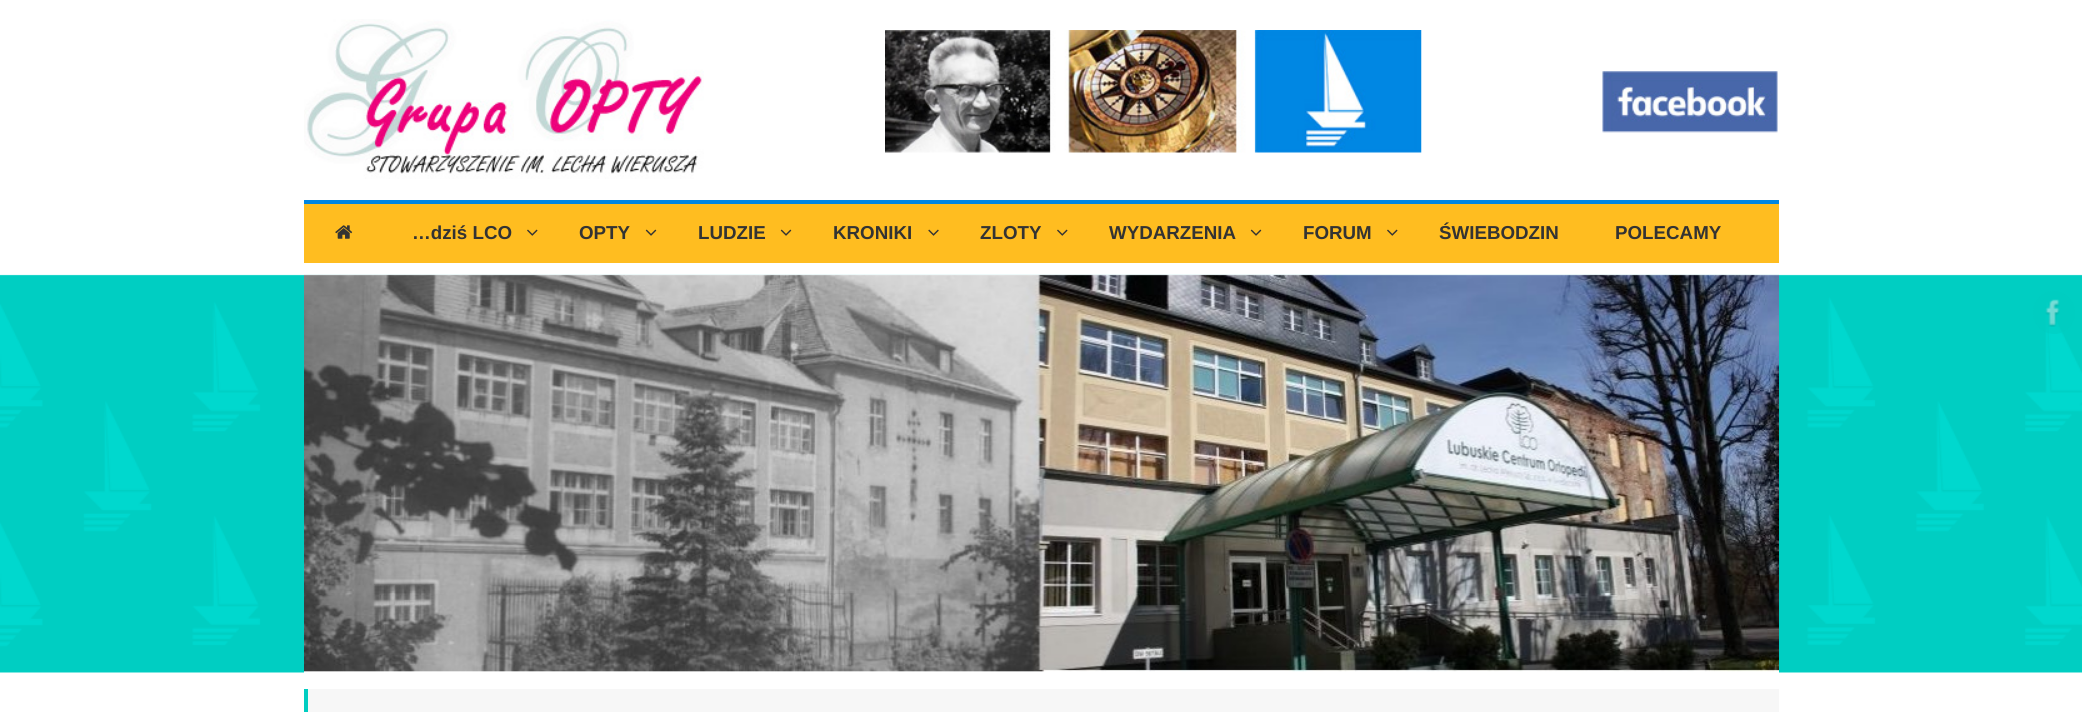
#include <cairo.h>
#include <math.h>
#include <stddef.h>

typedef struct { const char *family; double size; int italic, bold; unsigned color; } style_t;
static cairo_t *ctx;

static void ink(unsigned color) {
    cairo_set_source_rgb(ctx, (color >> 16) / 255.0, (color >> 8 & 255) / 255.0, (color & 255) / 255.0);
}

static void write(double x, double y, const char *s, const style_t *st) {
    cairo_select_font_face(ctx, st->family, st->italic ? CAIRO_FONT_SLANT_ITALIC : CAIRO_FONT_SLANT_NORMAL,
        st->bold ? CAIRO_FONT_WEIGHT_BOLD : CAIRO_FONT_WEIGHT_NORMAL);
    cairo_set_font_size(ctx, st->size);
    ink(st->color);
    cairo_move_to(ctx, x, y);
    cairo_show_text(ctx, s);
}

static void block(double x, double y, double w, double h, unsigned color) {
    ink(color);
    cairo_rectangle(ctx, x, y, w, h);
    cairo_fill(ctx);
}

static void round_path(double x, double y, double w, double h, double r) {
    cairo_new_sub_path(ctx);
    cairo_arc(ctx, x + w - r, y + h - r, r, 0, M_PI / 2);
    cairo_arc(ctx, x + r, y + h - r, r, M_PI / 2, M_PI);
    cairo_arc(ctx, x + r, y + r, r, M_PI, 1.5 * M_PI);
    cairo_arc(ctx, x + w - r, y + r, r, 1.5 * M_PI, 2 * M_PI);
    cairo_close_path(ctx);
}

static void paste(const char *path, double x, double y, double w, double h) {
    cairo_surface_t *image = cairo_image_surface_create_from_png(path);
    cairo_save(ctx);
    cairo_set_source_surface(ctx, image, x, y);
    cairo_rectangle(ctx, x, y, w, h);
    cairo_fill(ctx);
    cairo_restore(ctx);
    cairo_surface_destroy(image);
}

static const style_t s1 = {"Liberation Sans", 18.75, 0, 1, 0x333333};

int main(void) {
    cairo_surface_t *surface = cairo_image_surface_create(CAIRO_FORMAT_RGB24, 2082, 712);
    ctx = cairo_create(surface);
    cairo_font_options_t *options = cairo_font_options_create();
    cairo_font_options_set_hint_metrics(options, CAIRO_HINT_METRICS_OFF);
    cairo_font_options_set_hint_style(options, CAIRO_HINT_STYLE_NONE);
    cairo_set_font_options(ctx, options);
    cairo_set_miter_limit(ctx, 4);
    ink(0xffffff);
    cairo_paint(ctx);
    paste("pic1.png", 0, 274, 2082, 399);
    paste("pic2.png", 304, 19, 400, 160);
    paste("pic3.png", 885, 30, 537, 123);
    paste("pic4.png", 1602, 71, 176, 62);
    block(304, 204, 1475, 59, 0xffbd20);
    block(304, 200, 1475, 4, 0x0086e3);
    paste("pic5.png", 335, 225, 18, 14);
    write(412, 239, "…dziś LCO", &s1);
    paste("pic6.png", 527, 229, 11, 7);
    write(579, 239, "OPTY", &s1);
    paste("pic7.png", 645, 229, 12, 7);
    write(698, 239, "LUDZIE", &s1);
    paste("pic7.png", 780, 229, 12, 7);
    write(833, 239, "KRONIKI", &s1);
    paste("pic8.png", 928, 229, 11, 7);
    write(980, 239, "ZLOTY", &s1);
    paste("pic6.png", 1057, 229, 11, 7);
    write(1109, 239, "WYDARZENIA", &s1);
    paste("pic7.png", 1250, 229, 12, 7);
    write(1303, 239, "FORUM", &s1);
    paste("pic6.png", 1387, 229, 11, 7);
    write(1439, 239, "ŚWIEBODZIN", &s1);
    write(1615, 239, "POLECAMY", &s1);
    block(304, 275, 1475, 398, 0xffffff);
    paste("pic9.png", 304, 274, 1475, 398);
    block(308, 689, 1471, 23, 0xf7f7f7);
    block(304, 689, 4, 23, 0x00cdc1);
    cairo_set_source_rgba(ctx, 0, 0.804, 0.757, 0.5);
    round_path(2033, 291, 42, 43, 21);
    cairo_fill(ctx);
    paste("pic10.png", 2045, 299, 15, 28);
    cairo_surface_write_to_png(surface, "screenshot.png");
    cairo_font_options_destroy(options);
    cairo_destroy(ctx);
    cairo_surface_destroy(surface);
    return 0;
}
